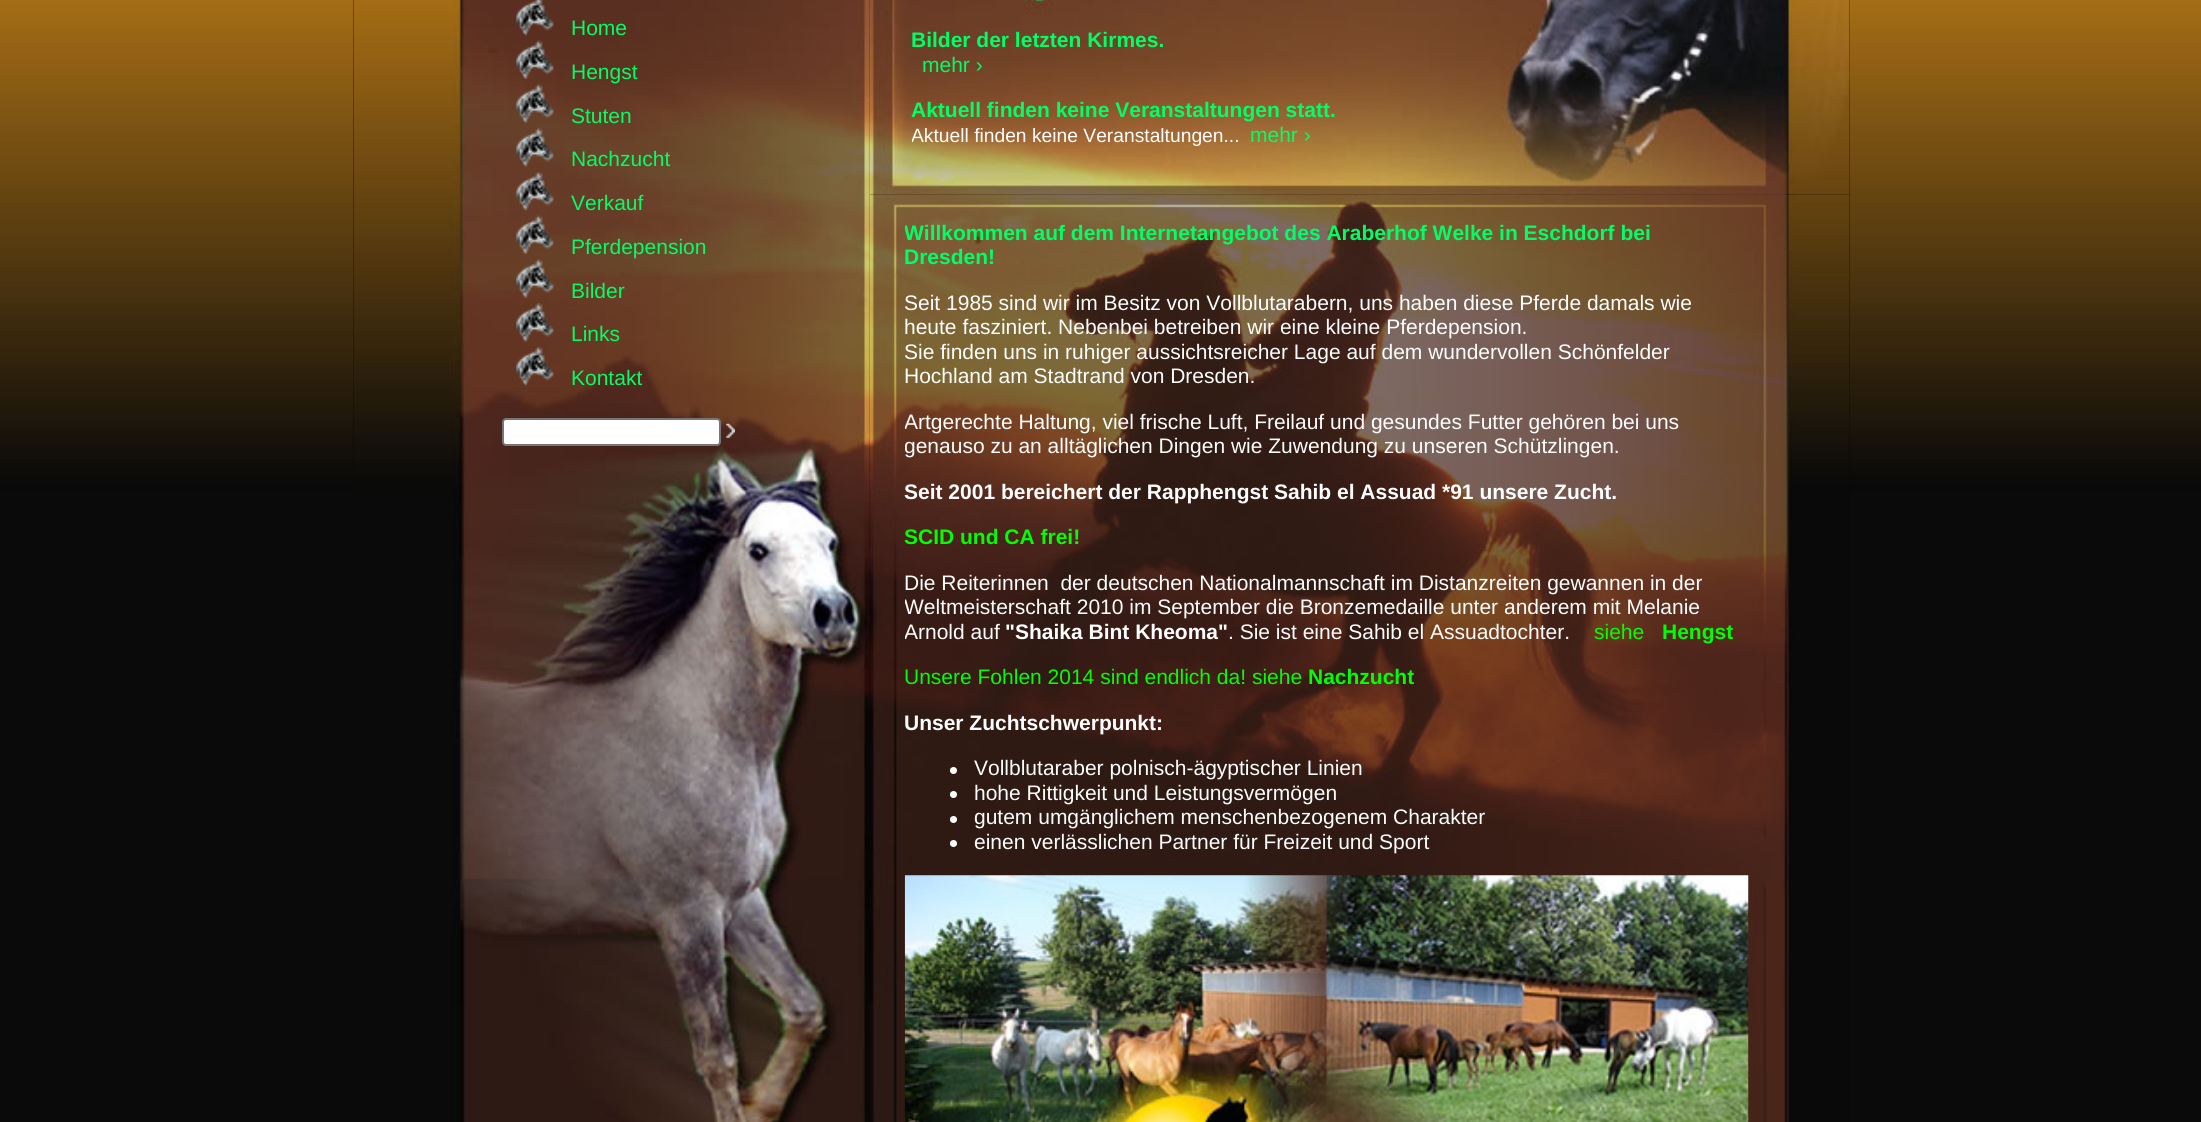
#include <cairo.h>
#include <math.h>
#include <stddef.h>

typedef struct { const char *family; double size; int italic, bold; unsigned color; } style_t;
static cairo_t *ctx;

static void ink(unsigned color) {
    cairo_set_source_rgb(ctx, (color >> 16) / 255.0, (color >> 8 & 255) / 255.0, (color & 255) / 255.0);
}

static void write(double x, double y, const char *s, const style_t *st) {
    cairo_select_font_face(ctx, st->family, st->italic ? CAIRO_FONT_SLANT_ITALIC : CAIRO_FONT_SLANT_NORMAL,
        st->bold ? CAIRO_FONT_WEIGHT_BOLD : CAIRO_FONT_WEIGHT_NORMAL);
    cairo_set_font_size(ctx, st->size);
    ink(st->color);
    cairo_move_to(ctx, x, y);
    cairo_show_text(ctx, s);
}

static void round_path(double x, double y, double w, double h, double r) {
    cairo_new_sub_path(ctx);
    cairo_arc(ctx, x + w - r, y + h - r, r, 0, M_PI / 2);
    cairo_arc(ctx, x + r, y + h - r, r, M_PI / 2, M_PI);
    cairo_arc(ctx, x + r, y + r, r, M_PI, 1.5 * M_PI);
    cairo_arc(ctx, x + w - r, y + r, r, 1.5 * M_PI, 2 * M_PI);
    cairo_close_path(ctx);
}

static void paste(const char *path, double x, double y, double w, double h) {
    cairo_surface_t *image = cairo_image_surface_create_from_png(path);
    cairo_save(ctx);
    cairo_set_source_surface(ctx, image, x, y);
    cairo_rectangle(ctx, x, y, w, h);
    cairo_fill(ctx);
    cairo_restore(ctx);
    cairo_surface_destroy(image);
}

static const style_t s1 = {"Liberation Sans", 21, 0, 0, 0x00ff66};
static const style_t s2 = {"Liberation Sans", 21, 0, 1, 0x00ff66};
static const style_t s3 = {"Liberation Sans", 19.25, 0, 0, 0xffffff};
static const style_t s4 = {"Liberation Sans", 21, 0, 0, 0xffffff};
static const style_t s5 = {"Liberation Sans", 21, 0, 1, 0xffffff};
static const style_t s6 = {"Liberation Sans", 21, 0, 1, 0x00ff00};
static const style_t s7 = {"Liberation Sans", 21, 0, 0, 0x00ff00};

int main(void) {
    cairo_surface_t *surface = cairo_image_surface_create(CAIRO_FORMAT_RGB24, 2201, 1122);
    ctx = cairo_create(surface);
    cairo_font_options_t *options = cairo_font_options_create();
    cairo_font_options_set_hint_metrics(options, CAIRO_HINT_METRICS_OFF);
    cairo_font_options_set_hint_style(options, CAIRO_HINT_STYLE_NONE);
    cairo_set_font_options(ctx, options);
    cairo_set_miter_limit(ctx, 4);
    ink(0xffffff);
    cairo_paint(ctx);
    paste("pic1.png", 0, 0, 2201, 1122);
    paste("pic2.png", 353, 0, 1497, 1122);
    paste("pic3.png", 353, 0, 517, 1122);
    paste("pic4.png", 516, 0, 38, 36);
    write(571, 35, "Home", &s1);
    paste("pic5.png", 516, 40, 38, 39);
    write(571, 79, "Hengst", &s1);
    paste("pic6.png", 516, 84, 38, 39);
    write(571, 123, "Stuten", &s1);
    paste("pic7.png", 516, 128, 38, 39);
    write(571, 166, "Nachzucht", &s1);
    paste("pic8.png", 516, 171, 38, 40);
    write(571, 210, "Verkauf", &s1);
    paste("pic9.png", 516, 215, 38, 39);
    write(571, 254, "Pferdepension", &s1);
    paste("pic10.png", 516, 259, 38, 39);
    write(571, 298, "Bilder", &s1);
    paste("pic11.png", 516, 303, 38, 39);
    write(571, 341, "Links", &s1);
    paste("pic12.png", 516, 346, 38, 40);
    write(571, 385, "Kontakt", &s1);
    ink(0xffffff);
    round_path(503, 419, 217, 26, 3);
    cairo_fill_preserve(ctx);
    ink(0x767676);
    cairo_stroke(ctx);
    paste("pic13.png", 726, 423, 9, 15);
    paste("pic14.png", 869, 0, 981, 195);
    write(911, 47, "Bilder der letzten Kirmes.", &s2);
    write(922, 72, "mehr ›", &s1);
    write(911, 117, "Aktuell finden keine Veranstaltungen statt.", &s2);
    cairo_save(ctx);
    cairo_rectangle(ctx, 912, 7, 787, 158);
    cairo_clip(ctx);
    write(911, 142, "Aktuell finden keine Veranstaltungen...", &s3);
    cairo_restore(ctx);
    write(1250, 142, "mehr ›", &s1);
    paste("pic15.png", 869, 194, 981, 928);
    cairo_save(ctx);
    cairo_rectangle(ctx, 905, 221, 843, 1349);
    cairo_clip(ctx);
    write(904, 240, "Willkommen auf dem Internetangebot des Araberhof Welke in Eschdorf bei", &s2);
    cairo_restore(ctx);
    write(904, 264, "Dresden!", &s2);
    write(904, 310, "Seit 1985 sind wir im Besitz von Vollblutarabern, uns haben diese Pferde damals wie", &s4);
    write(904, 334, "heute fasziniert. Nebenbei betreiben wir eine kleine Pferdepension.", &s4);
    write(904, 359, "Sie finden uns in ruhiger aussichtsreicher Lage auf dem wundervollen Schönfelder", &s4);
    write(904, 383, "Hochland am Stadtrand von Dresden.", &s4);
    cairo_save(ctx);
    cairo_rectangle(ctx, 905, 221, 843, 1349);
    cairo_clip(ctx);
    write(904, 429, "Artgerechte Haltung, viel frische Luft, Freilauf und gesundes Futter gehören bei uns", &s4);
    write(904, 453, "genauso zu an alltäglichen Dingen wie Zuwendung zu unseren Schützlingen.", &s4);
    cairo_restore(ctx);
    write(904, 499, "Seit 2001 bereichert der Rapphengst Sahib el Assuad *91 unsere Zucht.", &s5);
    write(904, 544, "SCID und CA frei!", &s6);
    write(904, 590, "Die Reiterinnen  der deutschen Nationalmannschaft im Distanzreiten gewannen in der", &s4);
    cairo_save(ctx);
    cairo_rectangle(ctx, 905, 221, 843, 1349);
    cairo_clip(ctx);
    write(904, 614, "Weltmeisterschaft 2010 im September die Bronzemedaille unter anderem mit Melanie", &s4);
    write(904, 639, "Arnold auf", &s4);
    cairo_restore(ctx);
    write(1005, 639, "\"Shaika Bint Kheoma\"", &s5);
    write(1228, 639, ". Sie ist eine Sahib el Assuadtochter.", &s4);
    write(1594, 639, "siehe", &s7);
    write(1662, 639, "Hengst", &s6);
    write(904, 684, "Unsere Fohlen 2014 sind endlich da! siehe", &s7);
    write(1308, 684, "Nachzucht", &s6);
    write(904, 730, "Unser Zuchtschwerpunkt:", &s5);
    cairo_new_path(ctx);
    cairo_arc(ctx, 953.5, 770.5, 3.5, 0, 2 * M_PI);
    cairo_fill(ctx);
    write(974, 775, "Vollblutaraber polnisch-ägyptischer Linien", &s4);
    cairo_new_path(ctx);
    cairo_arc(ctx, 953.5, 794.5, 3.5, 0, 2 * M_PI);
    cairo_fill(ctx);
    write(974, 800, "hohe Rittigkeit und Leistungsvermögen", &s4);
    cairo_new_path(ctx);
    cairo_arc(ctx, 953.5, 819.5, 3.5, 0, 2 * M_PI);
    cairo_fill(ctx);
    write(974, 824, "gutem umgänglichem menschenbezogenem Charakter", &s4);
    cairo_new_path(ctx);
    cairo_arc(ctx, 953.5, 843.5, 3.5, 0, 2 * M_PI);
    cairo_fill(ctx);
    write(974, 849, "einen verlässlichen Partner für Freizeit und Sport", &s4);
    paste("pic16.png", 904, 875, 845, 247);
    cairo_surface_write_to_png(surface, "screenshot.png");
    cairo_font_options_destroy(options);
    cairo_destroy(ctx);
    cairo_surface_destroy(surface);
    return 0;
}
